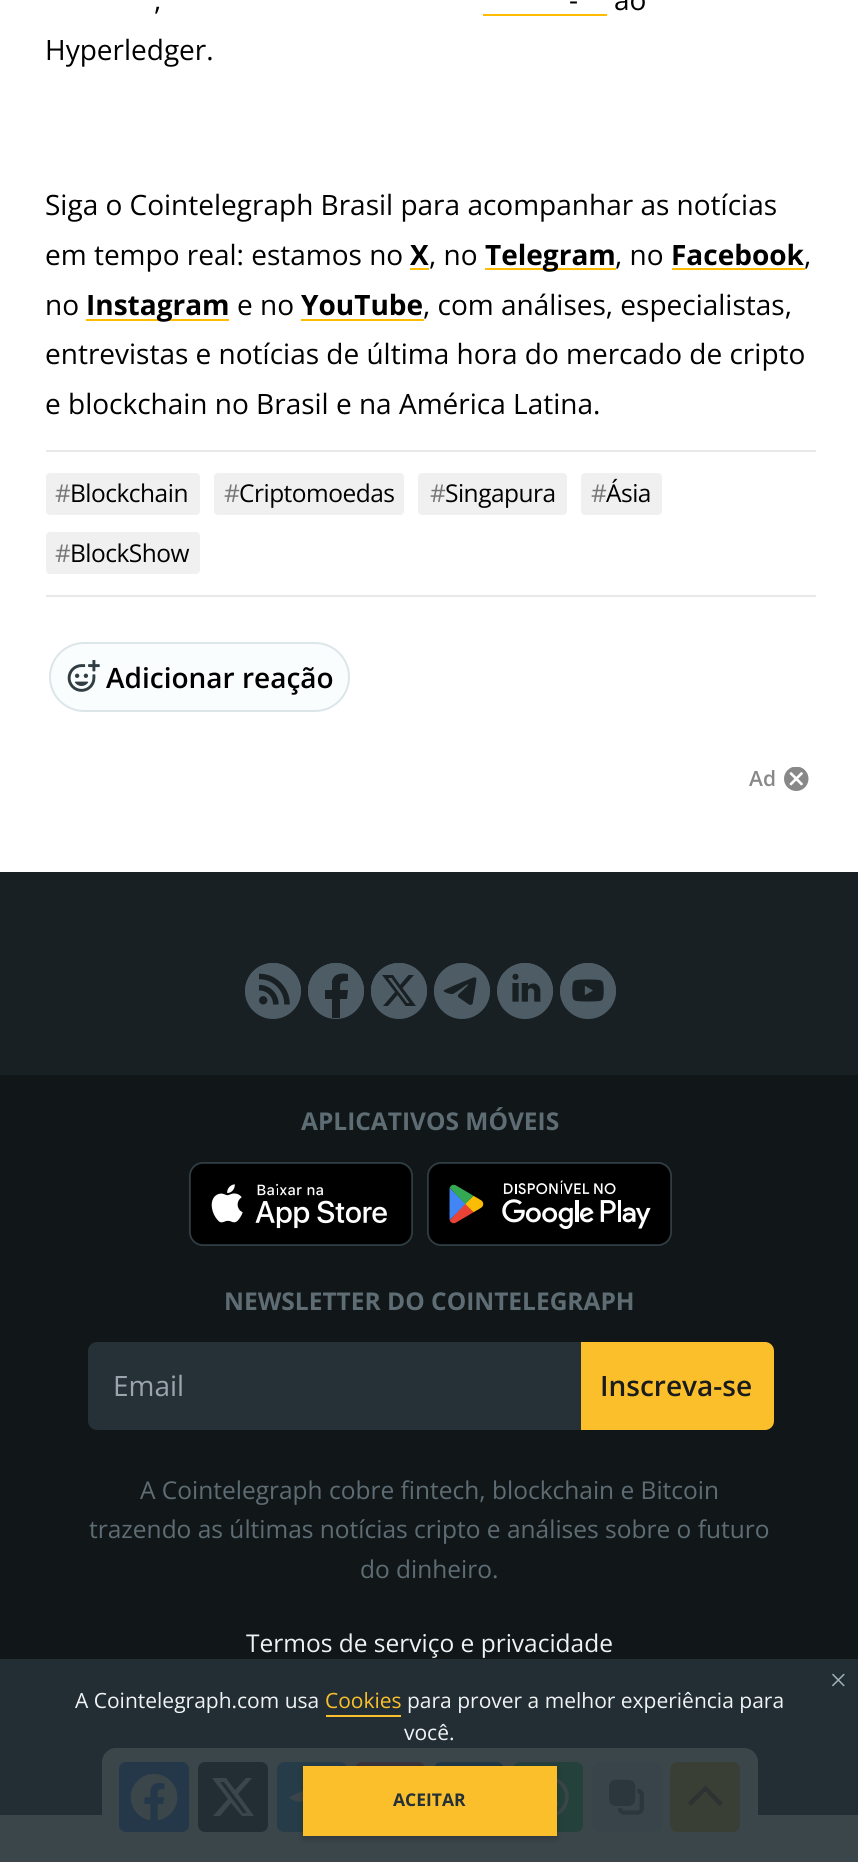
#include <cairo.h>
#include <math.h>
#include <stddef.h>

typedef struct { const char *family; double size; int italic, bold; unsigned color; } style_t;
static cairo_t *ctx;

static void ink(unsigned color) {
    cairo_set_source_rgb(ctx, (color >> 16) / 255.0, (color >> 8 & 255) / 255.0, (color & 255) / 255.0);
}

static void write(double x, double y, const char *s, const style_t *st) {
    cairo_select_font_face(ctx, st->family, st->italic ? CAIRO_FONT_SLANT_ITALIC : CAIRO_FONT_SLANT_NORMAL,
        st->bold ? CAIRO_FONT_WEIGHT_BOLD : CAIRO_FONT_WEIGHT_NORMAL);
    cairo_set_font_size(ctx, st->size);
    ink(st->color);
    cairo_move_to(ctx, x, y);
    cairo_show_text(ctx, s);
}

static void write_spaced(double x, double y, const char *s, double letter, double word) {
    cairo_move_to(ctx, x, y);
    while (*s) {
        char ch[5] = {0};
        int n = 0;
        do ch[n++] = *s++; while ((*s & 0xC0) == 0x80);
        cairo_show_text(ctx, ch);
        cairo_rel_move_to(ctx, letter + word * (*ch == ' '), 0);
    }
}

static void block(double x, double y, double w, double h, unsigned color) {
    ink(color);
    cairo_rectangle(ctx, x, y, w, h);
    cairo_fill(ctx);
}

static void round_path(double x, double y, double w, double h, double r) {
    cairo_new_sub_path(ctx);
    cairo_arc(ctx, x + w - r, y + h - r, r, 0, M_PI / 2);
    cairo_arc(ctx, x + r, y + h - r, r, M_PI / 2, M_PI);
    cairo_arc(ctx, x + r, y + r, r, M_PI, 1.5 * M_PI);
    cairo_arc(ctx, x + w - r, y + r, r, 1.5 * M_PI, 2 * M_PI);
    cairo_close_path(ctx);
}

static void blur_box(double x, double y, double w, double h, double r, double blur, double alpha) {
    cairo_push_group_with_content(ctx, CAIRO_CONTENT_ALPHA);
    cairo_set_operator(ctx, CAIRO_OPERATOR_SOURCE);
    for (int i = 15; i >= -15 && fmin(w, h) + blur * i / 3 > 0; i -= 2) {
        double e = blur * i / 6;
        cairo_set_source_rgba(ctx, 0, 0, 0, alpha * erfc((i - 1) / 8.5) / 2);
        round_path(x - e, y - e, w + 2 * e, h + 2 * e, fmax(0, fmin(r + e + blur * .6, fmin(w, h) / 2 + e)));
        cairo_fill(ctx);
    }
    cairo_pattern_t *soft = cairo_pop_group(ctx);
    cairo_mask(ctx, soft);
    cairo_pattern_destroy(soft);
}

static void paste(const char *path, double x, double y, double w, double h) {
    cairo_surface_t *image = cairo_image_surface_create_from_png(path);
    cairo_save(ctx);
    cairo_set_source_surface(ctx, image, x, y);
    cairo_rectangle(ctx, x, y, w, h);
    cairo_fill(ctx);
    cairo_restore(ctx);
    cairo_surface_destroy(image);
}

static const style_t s1 = {"Open Sans", 28, 0, 0, 0x000000};
static const style_t s2 = {"Open Sans", 28, 0, 1, 0x000000};
static const style_t s3 = {"Open Sans SemiBold", 28, 0, 0, 0x000000};
static const style_t s4 = {"Open Sans SemiBold", 21, 0, 0, 0x888888};
static const style_t s5 = {"Open Sans", 24.5, 0, 1, 0x5e6d74};
static const style_t s6 = {"Open Sans", 28, 0, 0, 0x9ca3af};
static const style_t s7 = {"Open Sans SemiBold", 28, 0, 0, 0x1a1b1d};
static const style_t s8 = {"Open Sans", 24.5, 0, 0, 0x5e6d74};
static const style_t s9 = {"Open Sans", 24.5, 0, 0, 0xf0f3f4};
static const style_t s10 = {"Open Sans", 21, 0, 0, 0xf0f3f4};
static const style_t s11 = {"Open Sans", 21, 0, 0, 0xfabf2c};
static const style_t s12 = {"Open Sans", 17.5, 0, 1, 0x253137};

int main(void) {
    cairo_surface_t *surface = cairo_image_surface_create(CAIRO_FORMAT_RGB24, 858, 1862);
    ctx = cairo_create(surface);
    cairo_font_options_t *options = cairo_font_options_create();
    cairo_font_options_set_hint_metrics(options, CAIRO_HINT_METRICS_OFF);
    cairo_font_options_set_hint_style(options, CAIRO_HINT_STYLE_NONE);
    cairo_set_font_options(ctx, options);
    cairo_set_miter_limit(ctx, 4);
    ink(0xffffff);
    cairo_paint(ctx);
    block(0, 1815, 858, 47, 0x3b464b);
    write(569, 10, "-", &s1);
    block(483, 14, 124, 2, 0xffbb00);
    write(614, 10, "ao", &s1);
    write(154, 10, ",", &s1);
    write(45, 60, "Hyperledger.", &s1);
    write(45, 215, "Siga o Cointelegraph Brasil para acompanhar as notícias", &s1);
    write(45, 265, "em tempo real: estamos no", &s1);
    write(410, 265, "X", &s2);
    block(410, 268, 19, 2, 0xffbb00);
    write(429, 265, ", no", &s1);
    block(485, 268, 131, 2, 0xffbb00);
    write(485, 265, "Telegram", &s2);
    write(615, 265, ", no", &s1);
    write(671, 265, "Facebook", &s2);
    block(672, 268, 133, 2, 0xffbb00);
    write(804, 265, ",", &s1);
    write(45, 315, "no", &s1);
    block(86, 319, 143, 2, 0xffbb00);
    write(86, 315, "Instagram", &s2);
    write(237, 315, "e no", &s1);
    write(301, 315, "YouTube", &s2);
    block(301, 319, 123, 2, 0xffbb00);
    write(423, 315, ", com análises, especialistas,", &s1);
    write(45, 364, "entrevistas e notícias de última hora do mercado de cripto", &s1);
    write(45, 414, "e blockchain no Brasil e na América Latina.", &s1);
    block(46, 450, 770, 2, 0xeae9e9);
    ink(0xf0f0f0);
    round_path(46, 473, 154, 42, 4);
    cairo_fill(ctx);
    cairo_set_font_size(ctx, 24.5);
    ink(0x787878);
    write_spaced(55, 502, "#", -0.5, 0);
    ink(0x000000);
    write_spaced(70, 502, "Blockchain", -0.5, 0);
    ink(0xf0f0f0);
    round_path(214, 473, 190, 42, 4);
    cairo_fill(ctx);
    ink(0x787878);
    write_spaced(224, 502, "#", -0.5, 0);
    ink(0x000000);
    write_spaced(239, 502, "Criptomoedas", -0.5, 0);
    ink(0xf0f0f0);
    round_path(418, 473, 149, 42, 4);
    cairo_fill(ctx);
    ink(0x787878);
    write_spaced(430, 502, "#", -0.5, 0);
    ink(0x000000);
    write_spaced(445, 502, "Singapura", -0.5, 0);
    ink(0xf0f0f0);
    round_path(581, 473, 81, 42, 4);
    cairo_fill(ctx);
    ink(0x787878);
    write_spaced(591, 502, "#", -0.5, 0);
    ink(0x000000);
    write_spaced(606, 502, "Ásia", -0.5, 0);
    ink(0xf0f0f0);
    round_path(46, 532, 154, 42, 4);
    cairo_fill(ctx);
    ink(0x787878);
    write_spaced(55, 562, "#", -0.5, 0);
    ink(0x000000);
    write_spaced(70, 562, "BlockShow", -0.5, 0);
    block(46, 595, 770, 2, 0xeae9e9);
    ink(0xfafdfd);
    round_path(50, 643, 299, 68, 34);
    cairo_fill_preserve(ctx);
    ink(0xdce6e8);
    cairo_stroke(ctx);
    paste("pic1.png", 67, 660, 33, 32);
    write(106, 688, "Adicionar reação", &s3);
    write(749, 786, "Ad", &s4);
    paste("pic2.png", 784, 767, 25, 24);
    block(0, 1659, 858, 156, 0x232e34);
    ink(0x3b464b);
    round_path(102, 1748, 656, 97, 14);
    cairo_fill(ctx);
    paste("pic3.png", 119, 1762, 70, 70);
    ink(0x232e34);
    round_path(198, 1762, 70, 70, 7);
    cairo_fill(ctx);
    ink(0x3b464b);
    cairo_new_path(ctx);
    cairo_move_to(ctx, 246, 1778);
    cairo_line_to(ctx, 252, 1778);
    cairo_line_to(ctx, 238, 1794);
    cairo_line_to(ctx, 254, 1816);
    cairo_line_to(ctx, 242, 1816);
    cairo_line_to(ctx, 231, 1803);
    cairo_line_to(ctx, 220, 1816);
    cairo_line_to(ctx, 213, 1816);
    cairo_line_to(ctx, 228, 1799);
    cairo_line_to(ctx, 212, 1778);
    cairo_line_to(ctx, 226, 1778);
    cairo_line_to(ctx, 235, 1790);
    cairo_close_path(ctx);
    cairo_move_to(ctx, 243, 1813);
    cairo_line_to(ctx, 247, 1813);
    cairo_line_to(ctx, 224, 1782);
    cairo_line_to(ctx, 220, 1782);
    cairo_close_path(ctx);
    cairo_fill(ctx);
    paste("pic4.png", 277, 1762, 70, 70);
    paste("pic5.png", 355, 1762, 70, 4);
    paste("pic6.png", 434, 1762, 70, 4);
    paste("pic7.png", 513, 1762, 70, 70);
    paste("pic8.png", 592, 1762, 70, 70);
    ink(0x3a3f36);
    round_path(670, 1762, 70, 70, 7);
    cairo_fill(ctx);
    ink(0x2d3332);
    cairo_new_path(ctx);
    cairo_move_to(ctx, 706, 1792);
    cairo_curve_to(ctx, 704.5, 1791, 702.5, 1794, 702.5, 1794.5);
    cairo_line_to(ctx, 694, 1803);
    cairo_curve_to(ctx, 691.5, 1805.5, 691.5, 1806.5, 689.5, 1804.5);
    cairo_line_to(ctx, 688, 1803);
    cairo_curve_to(ctx, 688, 1801.5, 695.5, 1795.5, 696.5, 1794);
    cairo_line_to(ctx, 702, 1789);
    cairo_curve_to(ctx, 706.5, 1784, 705, 1785.5, 711.5, 1791.5);
    cairo_line_to(ctx, 719.5, 1799.5);
    cairo_curve_to(ctx, 722, 1802, 724, 1803, 720.5, 1805.5);
    cairo_curve_to(ctx, 719, 1806.5, 717, 1803.5, 716.5, 1803);
    cairo_close_path(ctx);
    cairo_fill(ctx);
    block(0, 872, 858, 203, 0x192024);
    ink(0x4e5d65);
    cairo_arc(ctx, 273, 991, 28, 0, 2 * M_PI);
    cairo_fill(ctx);
    paste("pic9.png", 245, 963, 56, 46);
    cairo_arc(ctx, 336, 991, 28, 0, 2 * M_PI);
    cairo_fill(ctx);
    cairo_new_path(ctx);
    cairo_move_to(ctx, 336, 963);
    cairo_curve_to(ctx, 351, 963, 364, 975, 364, 991);
    cairo_curve_to(ctx, 364, 1006, 351, 1018, 336, 1018);
    cairo_curve_to(ctx, 321, 1018, 308, 1006, 308, 991);
    cairo_curve_to(ctx, 308, 975, 321, 963, 336, 963);
    cairo_close_path(ctx);
    cairo_fill(ctx);
    ink(0x192024);
    cairo_new_path(ctx);
    cairo_move_to(ctx, 340, 1018);
    cairo_line_to(ctx, 340, 999);
    cairo_line_to(ctx, 347, 999);
    cairo_line_to(ctx, 348, 990);
    cairo_line_to(ctx, 340, 990);
    cairo_curve_to(ctx, 340, 982, 340, 981, 348, 981);
    cairo_line_to(ctx, 348, 974);
    cairo_curve_to(ctx, 342, 973, 334, 973, 332, 981);
    cairo_line_to(ctx, 332, 990);
    cairo_line_to(ctx, 325, 990);
    cairo_line_to(ctx, 325, 999);
    cairo_line_to(ctx, 332, 999);
    cairo_line_to(ctx, 332, 1018);
    cairo_close_path(ctx);
    cairo_fill(ctx);
    ink(0x4e5d65);
    cairo_arc(ctx, 399, 991, 28, 0, 2 * M_PI);
    cairo_fill(ctx);
    cairo_new_path(ctx);
    cairo_move_to(ctx, 399, 963);
    cairo_curve_to(ctx, 414, 963, 427, 975, 427, 991);
    cairo_curve_to(ctx, 427, 1006, 414, 1018, 399, 1018);
    cairo_curve_to(ctx, 384, 1018, 371, 1006, 371, 991);
    cairo_curve_to(ctx, 371, 975, 384, 963, 399, 963);
    cairo_close_path(ctx);
    cairo_fill(ctx);
    ink(0x192024);
    cairo_new_path(ctx);
    cairo_move_to(ctx, 408.5, 975);
    cairo_line_to(ctx, 414, 975);
    cairo_line_to(ctx, 402.5, 988);
    cairo_line_to(ctx, 416, 1006);
    cairo_line_to(ctx, 405.5, 1006);
    cairo_line_to(ctx, 397.5, 995);
    cairo_line_to(ctx, 388, 1006);
    cairo_line_to(ctx, 383, 1006);
    cairo_line_to(ctx, 395, 992);
    cairo_line_to(ctx, 382, 975);
    cairo_line_to(ctx, 393, 975);
    cairo_line_to(ctx, 400, 985);
    cairo_close_path(ctx);
    cairo_move_to(ctx, 407, 1003);
    cairo_line_to(ctx, 409.5, 1003);
    cairo_line_to(ctx, 391.5, 978);
    cairo_line_to(ctx, 388, 978);
    cairo_close_path(ctx);
    cairo_fill(ctx);
    ink(0x4e5d65);
    cairo_arc(ctx, 462, 991, 28, 0, 2 * M_PI);
    cairo_fill(ctx);
    paste("pic10.png", 434, 963, 56, 46);
    cairo_arc(ctx, 525, 991, 28, 0, 2 * M_PI);
    cairo_fill(ctx);
    paste("pic11.png", 497, 963, 56, 46);
    cairo_arc(ctx, 588, 991, 28, 0, 2 * M_PI);
    cairo_fill(ctx);
    paste("pic12.png", 560, 963, 56, 46);
    block(0, 1075, 858, 584, 0x111619);
    write(301, 1130, "APLICATIVOS MÓVEIS", &s5);
    paste("pic13.png", 189, 1162, 224, 84);
    paste("pic14.png", 427, 1162, 245, 84);
    write(224, 1310, "NEWSLETTER DO COINTELEGRAPH", &s5);
    ink(0x253136);
    cairo_new_path(ctx);
    cairo_move_to(ctx, 97, 1342);
    cairo_line_to(ctx, 581, 1342);
    cairo_line_to(ctx, 581, 1430);
    cairo_line_to(ctx, 97, 1430);
    cairo_curve_to(ctx, 92, 1430, 88, 1426, 88, 1421);
    cairo_line_to(ctx, 88, 1351);
    cairo_curve_to(ctx, 88, 1346, 92, 1342, 97, 1342);
    cairo_close_path(ctx);
    cairo_fill(ctx);
    write(113, 1396, "Email", &s6);
    ink(0xfabf2b);
    cairo_new_path(ctx);
    cairo_move_to(ctx, 581, 1342);
    cairo_line_to(ctx, 765, 1342);
    cairo_curve_to(ctx, 770, 1342, 774, 1346, 774, 1351);
    cairo_line_to(ctx, 774, 1421);
    cairo_curve_to(ctx, 774, 1426, 770, 1430, 765, 1430);
    cairo_line_to(ctx, 581, 1430);
    cairo_close_path(ctx);
    cairo_fill(ctx);
    write(600, 1396, "Inscreva-se", &s7);
    write(140, 1499, "A Cointelegraph cobre fintech, blockchain e Bitcoin", &s8);
    write(89, 1538, "trazendo as últimas notícias cripto e análises sobre o futuro", &s8);
    write(360, 1578, "do dinheiro.", &s8);
    write(246, 1652, "Termos de serviço e privacidade", &s9);
    paste("pic15.png", 832, 1673, 13, 14);
    write(75, 1708, "A Cointelegraph.com usa", &s10);
    write(325, 1708, "Cookies", &s11);
    block(326, 1715, 75, 2, 0xfabf2c);
    write(407, 1708, "para prover a melhor experiência para", &s10);
    write(404, 1740, "você.", &s10);
    ink(0x000000);
    blur_box(303, 1769, 254, 70, 0, 3.5, 0.2);
    block(303, 1766, 254, 70, 0xfabf2b);
    write(393, 1806, "ACEITAR", &s12);
    cairo_surface_write_to_png(surface, "screenshot.png");
    cairo_font_options_destroy(options);
    cairo_destroy(ctx);
    cairo_surface_destroy(surface);
    return 0;
}
